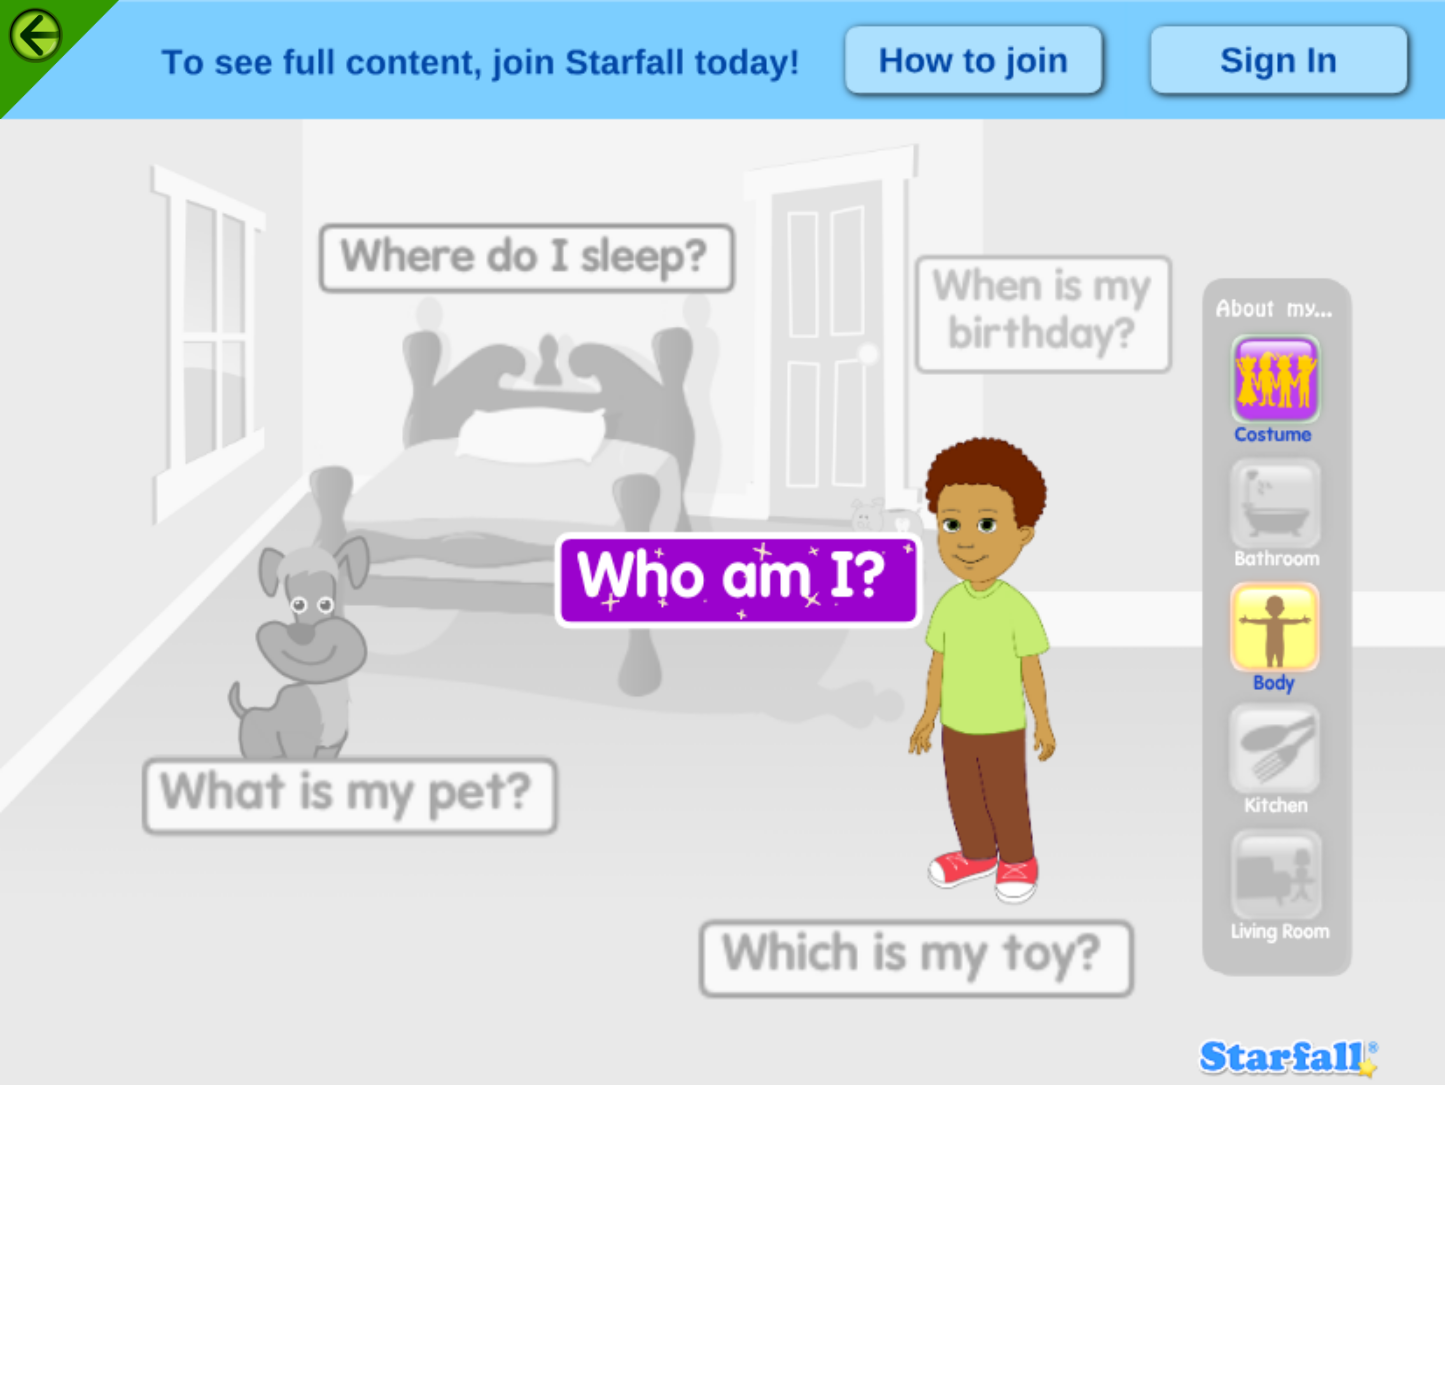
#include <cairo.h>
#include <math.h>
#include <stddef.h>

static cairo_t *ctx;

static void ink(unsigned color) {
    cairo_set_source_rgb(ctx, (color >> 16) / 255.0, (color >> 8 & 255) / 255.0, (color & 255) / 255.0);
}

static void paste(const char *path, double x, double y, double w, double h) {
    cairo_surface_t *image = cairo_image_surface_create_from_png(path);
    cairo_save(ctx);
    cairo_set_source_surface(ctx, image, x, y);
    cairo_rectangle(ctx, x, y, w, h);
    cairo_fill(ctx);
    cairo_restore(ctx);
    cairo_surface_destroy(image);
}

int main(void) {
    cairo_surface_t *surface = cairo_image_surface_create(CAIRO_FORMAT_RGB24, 1445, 1400);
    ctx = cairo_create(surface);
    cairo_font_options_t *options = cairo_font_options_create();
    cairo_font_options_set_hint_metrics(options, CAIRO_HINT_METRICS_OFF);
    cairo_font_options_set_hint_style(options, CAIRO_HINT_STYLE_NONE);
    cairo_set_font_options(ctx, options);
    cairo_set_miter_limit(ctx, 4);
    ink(0xffffff);
    cairo_paint(ctx);
    paste("pic1.png", 0, 0, 1445, 1085);
    paste("pic2.png", 0, 0, 119, 119);
    paste("pic3.png", 8, 7, 55, 56);
    cairo_surface_write_to_png(surface, "screenshot.png");
    cairo_font_options_destroy(options);
    cairo_destroy(ctx);
    cairo_surface_destroy(surface);
    return 0;
}
